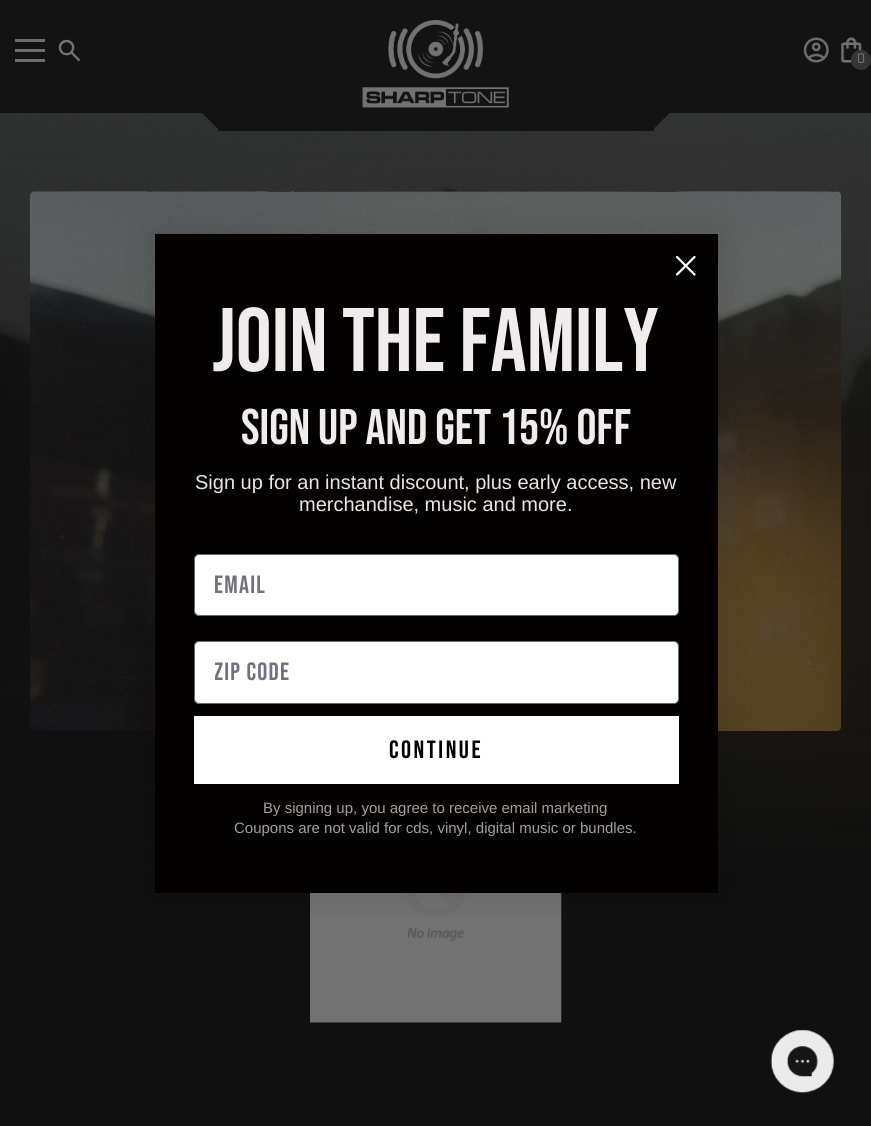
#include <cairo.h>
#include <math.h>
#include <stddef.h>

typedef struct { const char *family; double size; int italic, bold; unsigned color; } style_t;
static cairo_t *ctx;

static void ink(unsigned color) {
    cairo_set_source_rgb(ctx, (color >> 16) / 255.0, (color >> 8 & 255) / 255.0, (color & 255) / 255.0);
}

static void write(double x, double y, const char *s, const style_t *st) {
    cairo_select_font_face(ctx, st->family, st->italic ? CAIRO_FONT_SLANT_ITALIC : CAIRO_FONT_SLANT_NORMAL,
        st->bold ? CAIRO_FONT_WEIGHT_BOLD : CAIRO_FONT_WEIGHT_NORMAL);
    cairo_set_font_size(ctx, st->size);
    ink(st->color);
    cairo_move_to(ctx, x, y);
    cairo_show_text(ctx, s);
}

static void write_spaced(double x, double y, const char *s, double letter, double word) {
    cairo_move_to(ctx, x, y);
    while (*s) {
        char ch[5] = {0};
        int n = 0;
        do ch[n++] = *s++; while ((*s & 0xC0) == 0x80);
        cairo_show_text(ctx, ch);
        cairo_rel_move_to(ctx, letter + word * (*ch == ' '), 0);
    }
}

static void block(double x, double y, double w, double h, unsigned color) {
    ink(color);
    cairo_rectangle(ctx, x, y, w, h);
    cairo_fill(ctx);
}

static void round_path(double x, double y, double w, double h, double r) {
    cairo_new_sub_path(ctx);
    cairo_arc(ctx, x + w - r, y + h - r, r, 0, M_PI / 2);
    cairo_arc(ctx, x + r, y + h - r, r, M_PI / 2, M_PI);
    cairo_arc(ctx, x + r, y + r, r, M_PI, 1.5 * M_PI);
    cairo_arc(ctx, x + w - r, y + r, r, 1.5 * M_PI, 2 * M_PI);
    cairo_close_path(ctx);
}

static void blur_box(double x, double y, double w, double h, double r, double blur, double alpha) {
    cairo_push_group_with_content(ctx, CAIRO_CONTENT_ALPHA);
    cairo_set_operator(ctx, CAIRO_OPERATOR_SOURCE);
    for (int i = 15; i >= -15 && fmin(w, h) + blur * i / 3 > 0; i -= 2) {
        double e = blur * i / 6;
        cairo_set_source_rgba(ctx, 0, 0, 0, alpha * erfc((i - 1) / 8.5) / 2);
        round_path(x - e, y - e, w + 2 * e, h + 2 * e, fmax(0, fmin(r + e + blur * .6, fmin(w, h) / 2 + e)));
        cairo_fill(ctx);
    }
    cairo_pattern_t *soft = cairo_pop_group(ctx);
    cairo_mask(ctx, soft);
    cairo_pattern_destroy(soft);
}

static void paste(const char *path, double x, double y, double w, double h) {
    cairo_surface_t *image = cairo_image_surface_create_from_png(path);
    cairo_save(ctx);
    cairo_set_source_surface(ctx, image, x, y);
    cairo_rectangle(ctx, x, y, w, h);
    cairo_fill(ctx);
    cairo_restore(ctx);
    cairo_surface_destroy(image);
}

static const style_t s1 = {"Oxanium", 14, 0, 0, 0x727272};
static const style_t s2 = {"Bebas Neue", 90, 0, 0, 0xeeecec};
static const style_t s3 = {"Bebas Neue", 50, 0, 0, 0xeeecec};
static const style_t s4 = {"Liberation Sans", 20, 0, 0, 0xe7e7e7};
static const style_t s5 = {"Liberation Sans", 15, 0, 0, 0xa0a0a0};

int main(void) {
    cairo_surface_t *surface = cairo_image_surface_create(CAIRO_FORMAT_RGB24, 871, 1126);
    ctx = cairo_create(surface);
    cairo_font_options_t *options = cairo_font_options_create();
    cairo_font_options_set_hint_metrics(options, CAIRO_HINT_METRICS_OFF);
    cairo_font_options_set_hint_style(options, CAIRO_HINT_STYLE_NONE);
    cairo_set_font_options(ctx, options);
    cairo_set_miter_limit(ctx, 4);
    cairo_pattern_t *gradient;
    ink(0xffffff);
    cairo_paint(ctx);
    paste("pic5.png", 0, 113, 871, 751);
    gradient = cairo_pattern_create_linear(436, 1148, 436, 31);
    cairo_pattern_add_color_stop_rgba(gradient, 0.25, 0.063, 0.063, 0.063, 1);
    cairo_pattern_add_color_stop_rgba(gradient, 1, 0.063, 0.063, 0.063, 0);
    cairo_set_source(ctx, gradient);
    cairo_pattern_destroy(gradient);
    cairo_rectangle(ctx, 0, 113, 871, 1013);
    cairo_fill(ctx);
    ink(0x131313);
    cairo_new_path(ctx);
    cairo_move_to(ctx, 182, 93);
    cairo_line_to(ctx, 219, 93);
    cairo_line_to(ctx, 219, 130);
    cairo_close_path(ctx);
    cairo_fill(ctx);
    block(218, 113, 436, 18, 0x131313);
    cairo_new_path(ctx);
    cairo_move_to(ctx, 652.5, 130);
    cairo_line_to(ctx, 652.5, 93);
    cairo_line_to(ctx, 689.5, 93);
    cairo_close_path(ctx);
    cairo_fill(ctx);
    block(0, 0, 871, 113, 0x131313);
    block(15, 39, 30, 3, 0x6d6d6d);
    block(15, 49, 30, 3, 0x6d6d6d);
    block(15, 59, 30, 3, 0x6d6d6d);
    paste("pic1.png", 58, 39, 23, 23);
    paste("pic2.png", 362, 20, 147, 88);
    paste("pic3.png", 803, 37, 26, 26);
    paste("pic4.png", 841, 37, 21, 26);
    ink(0x353535);
    cairo_arc(ctx, 861, 60, 10, 0, 2 * M_PI);
    cairo_fill(ctx);
    write(857, 63, "0", &s1);
    paste("pic6.png", 30, 191, 812, 541);
    paste("pic7.png", 310, 893, 252, 130);
    ink(0x000000);
    blur_box(155, 234, 563, 659, 0, 19, 0.15);
    block(155, 234, 563, 659, 0x050000);
    cairo_new_path(ctx);
    cairo_move_to(ctx, 677, 257);
    cairo_line_to(ctx, 694.5, 274.5);
    cairo_move_to(ctx, 677, 274.5);
    cairo_line_to(ctx, 694.5, 257);
    cairo_close_path(ctx);
    ink(0xffffff);
    cairo_set_line_width(ctx, 2.2);
    cairo_set_line_cap(ctx, CAIRO_LINE_CAP_ROUND);
    cairo_set_line_join(ctx, CAIRO_LINE_JOIN_ROUND);
    cairo_stroke(ctx);
    write(212, 371, "JOIN THE FAMILY", &s2);
    write(241, 444, "SIGN UP AND GET 15% OFF", &s3);
    write(195, 489, "Sign up for an instant discount, plus early access, new", &s4);
    write(299, 511, "merchandise, music and more.", &s4);
    ink(0xffffff);
    round_path(194.5, 554.5, 484, 61, 4.5);
    cairo_fill_preserve(ctx);
    ink(0x606a72);
    cairo_set_line_width(ctx, 1);
    cairo_set_line_cap(ctx, CAIRO_LINE_CAP_BUTT);
    cairo_set_line_join(ctx, CAIRO_LINE_JOIN_MITER);
    cairo_stroke(ctx);
    cairo_select_font_face(ctx, "Bebas Neue", CAIRO_FONT_SLANT_NORMAL, CAIRO_FONT_WEIGHT_NORMAL);
    cairo_set_font_size(ctx, 25);
    ink(0x71727f);
    write_spaced(214, 593, "Email", 1.25, 0);
    ink(0xffffff);
    round_path(194.5, 641.5, 484, 62, 4.5);
    cairo_fill_preserve(ctx);
    ink(0x606a72);
    cairo_stroke(ctx);
    cairo_save(ctx);
    cairo_rectangle(ctx, 215, 658, 463, 30);
    cairo_clip(ctx);
    ink(0x71727f);
    write_spaced(214, 680, "Zip Code", 1.25, 0);
    cairo_restore(ctx);
    block(194, 716, 485, 68, 0xffffff);
    ink(0x000000);
    write_spaced(389, 758, "continue", 2.5, 0);
    write(263, 813, "By signing up, you agree to receive email marketing", &s5);
    write(234, 833, "Coupons are not valid for cds, vinyl, digital music or bundles.", &s5);
    paste("pic8.png", 770, 1029, 64, 64);
    cairo_surface_write_to_png(surface, "screenshot.png");
    cairo_font_options_destroy(options);
    cairo_destroy(ctx);
    cairo_surface_destroy(surface);
    return 0;
}
